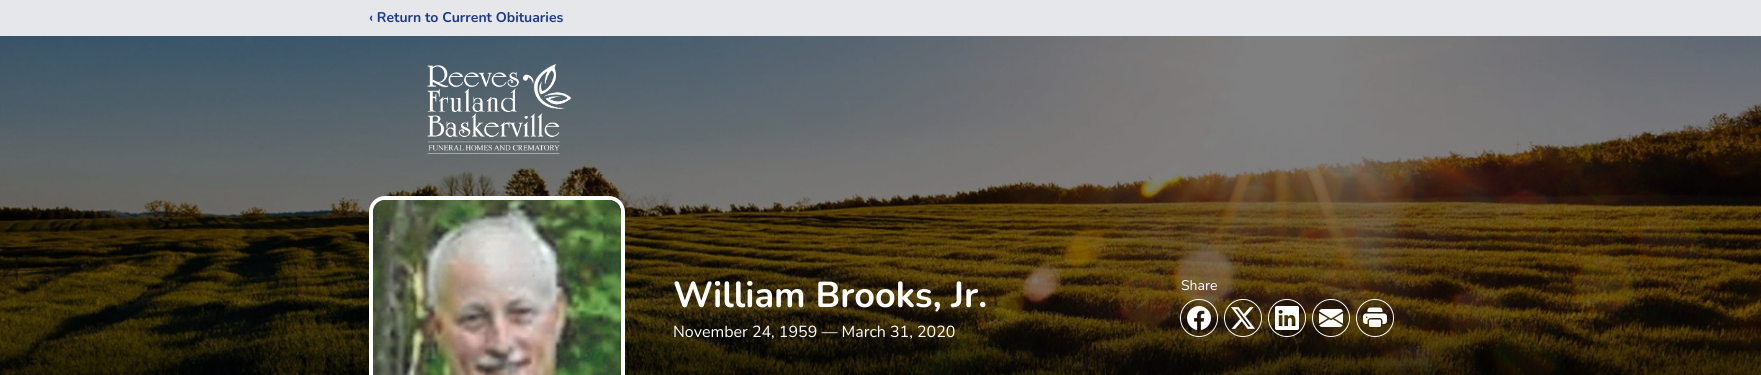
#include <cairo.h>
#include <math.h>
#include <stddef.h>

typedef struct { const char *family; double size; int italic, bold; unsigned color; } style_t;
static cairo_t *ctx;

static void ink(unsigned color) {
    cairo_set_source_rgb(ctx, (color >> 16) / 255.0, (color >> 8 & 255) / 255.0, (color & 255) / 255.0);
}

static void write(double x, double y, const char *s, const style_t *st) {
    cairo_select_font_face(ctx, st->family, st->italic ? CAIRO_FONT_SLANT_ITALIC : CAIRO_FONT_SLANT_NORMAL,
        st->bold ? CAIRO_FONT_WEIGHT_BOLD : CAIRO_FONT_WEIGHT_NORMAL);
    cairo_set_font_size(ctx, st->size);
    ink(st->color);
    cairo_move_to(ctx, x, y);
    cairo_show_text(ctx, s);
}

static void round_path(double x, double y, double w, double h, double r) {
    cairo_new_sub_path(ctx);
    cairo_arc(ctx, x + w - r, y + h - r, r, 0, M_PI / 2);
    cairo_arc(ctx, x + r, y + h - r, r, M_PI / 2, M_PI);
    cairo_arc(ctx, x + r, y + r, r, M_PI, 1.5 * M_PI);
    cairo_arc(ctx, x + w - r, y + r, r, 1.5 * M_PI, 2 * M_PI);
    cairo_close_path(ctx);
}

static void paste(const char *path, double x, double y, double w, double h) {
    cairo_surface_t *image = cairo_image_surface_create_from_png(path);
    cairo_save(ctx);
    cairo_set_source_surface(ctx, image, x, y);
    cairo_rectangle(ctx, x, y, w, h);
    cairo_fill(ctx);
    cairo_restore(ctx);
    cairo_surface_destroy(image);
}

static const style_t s1 = {"Nunito", 14, 0, 1, 0x1e3a8a};
static const style_t s2 = {"Nunito", 36, 0, 1, 0xffffff};
static const style_t s3 = {"Nunito", 16, 0, 0, 0xffffff};
static const style_t s4 = {"Nunito", 14, 0, 0, 0xffffff};

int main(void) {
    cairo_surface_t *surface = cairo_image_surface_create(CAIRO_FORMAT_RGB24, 1761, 375);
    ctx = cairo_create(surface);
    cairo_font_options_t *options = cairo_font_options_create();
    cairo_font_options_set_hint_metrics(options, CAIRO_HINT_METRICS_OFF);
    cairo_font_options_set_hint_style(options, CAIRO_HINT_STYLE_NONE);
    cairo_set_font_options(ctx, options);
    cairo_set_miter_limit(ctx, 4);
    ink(0xe5e7eb);
    cairo_paint(ctx);
    write(369, 22, "‹ Return to Current Obituaries", &s1);
    paste("pic1.png", 0, 36, 1761, 339);
    paste("pic2.png", 427, 64, 145, 90);
    round_path(371, 198, 252, 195, 14);
    ink(0xffffff);
    cairo_set_line_width(ctx, 4);
    cairo_stroke(ctx);
    paste("pic3.png", 373, 200, 248, 175);
    write(673, 307, "William Brooks, Jr.", &s2);
    write(673, 337, "November 24, 1959 — March 31, 2020", &s3);
    write(1181, 290, "Share", &s4);
    cairo_new_path(ctx);
    cairo_arc(ctx, 1199, 318, 18.5, 0, 2 * M_PI);
    cairo_set_line_width(ctx, 1);
    cairo_stroke(ctx);
    cairo_set_source_rgba(ctx, 0, 0, 0, 0.2);
    cairo_arc(ctx, 1199, 318, 18, 0, 2 * M_PI);
    cairo_fill(ctx);
    paste("pic4.png", 1187, 306, 24, 24);
    cairo_arc(ctx, 1243, 318, 18.5, 0, 2 * M_PI);
    ink(0xffffff);
    cairo_stroke(ctx);
    cairo_set_source_rgba(ctx, 0, 0, 0, 0.2);
    cairo_arc(ctx, 1243, 318, 18, 0, 2 * M_PI);
    cairo_fill(ctx);
    paste("pic5.png", 1231, 307, 24, 22);
    cairo_arc(ctx, 1287, 318, 18.5, 0, 2 * M_PI);
    ink(0xffffff);
    cairo_stroke(ctx);
    cairo_set_source_rgba(ctx, 0, 0, 0, 0.2);
    cairo_arc(ctx, 1287, 318, 18, 0, 2 * M_PI);
    cairo_fill(ctx);
    paste("pic6.png", 1275, 306, 24, 24);
    cairo_arc(ctx, 1331, 318, 18.5, 0, 2 * M_PI);
    ink(0xffffff);
    cairo_stroke(ctx);
    cairo_set_source_rgba(ctx, 0, 0, 0, 0.2);
    cairo_arc(ctx, 1331, 318, 18, 0, 2 * M_PI);
    cairo_fill(ctx);
    paste("pic7.png", 1319, 309, 24, 18);
    cairo_arc(ctx, 1375, 318, 18.5, 0, 2 * M_PI);
    ink(0xffffff);
    cairo_stroke(ctx);
    cairo_set_source_rgba(ctx, 0, 0, 0, 0.2);
    cairo_arc(ctx, 1375, 318, 18, 0, 2 * M_PI);
    cairo_fill(ctx);
    paste("pic8.png", 1363, 307, 24, 20);
    cairo_surface_write_to_png(surface, "screenshot.png");
    cairo_font_options_destroy(options);
    cairo_destroy(ctx);
    cairo_surface_destroy(surface);
    return 0;
}
